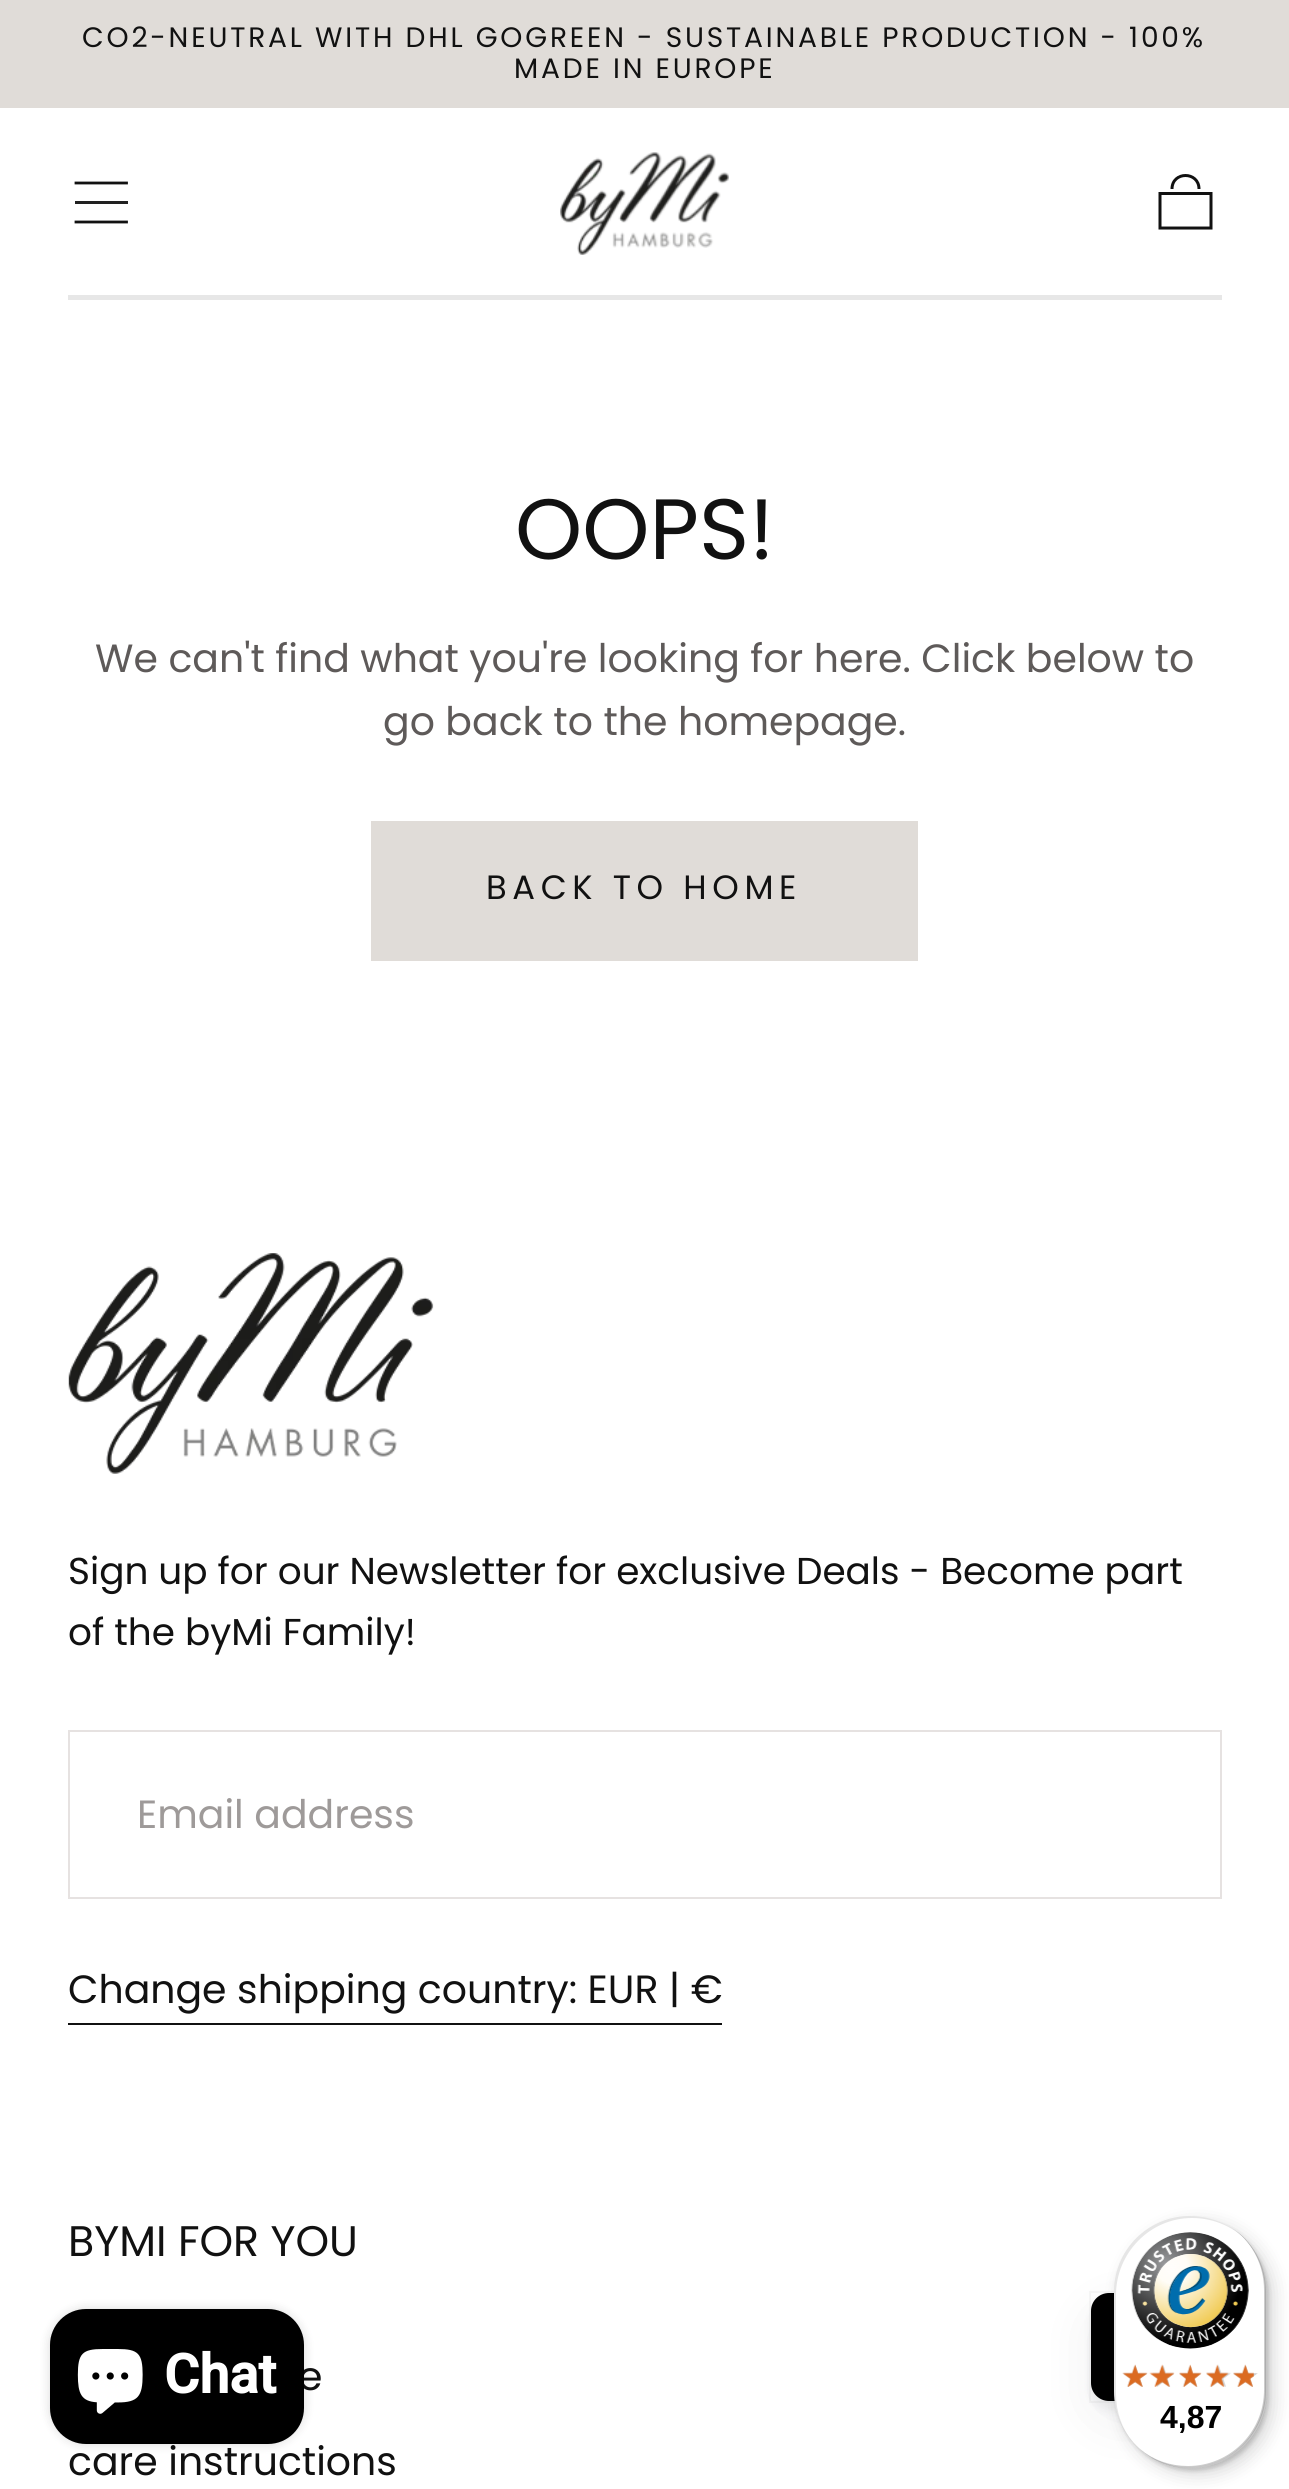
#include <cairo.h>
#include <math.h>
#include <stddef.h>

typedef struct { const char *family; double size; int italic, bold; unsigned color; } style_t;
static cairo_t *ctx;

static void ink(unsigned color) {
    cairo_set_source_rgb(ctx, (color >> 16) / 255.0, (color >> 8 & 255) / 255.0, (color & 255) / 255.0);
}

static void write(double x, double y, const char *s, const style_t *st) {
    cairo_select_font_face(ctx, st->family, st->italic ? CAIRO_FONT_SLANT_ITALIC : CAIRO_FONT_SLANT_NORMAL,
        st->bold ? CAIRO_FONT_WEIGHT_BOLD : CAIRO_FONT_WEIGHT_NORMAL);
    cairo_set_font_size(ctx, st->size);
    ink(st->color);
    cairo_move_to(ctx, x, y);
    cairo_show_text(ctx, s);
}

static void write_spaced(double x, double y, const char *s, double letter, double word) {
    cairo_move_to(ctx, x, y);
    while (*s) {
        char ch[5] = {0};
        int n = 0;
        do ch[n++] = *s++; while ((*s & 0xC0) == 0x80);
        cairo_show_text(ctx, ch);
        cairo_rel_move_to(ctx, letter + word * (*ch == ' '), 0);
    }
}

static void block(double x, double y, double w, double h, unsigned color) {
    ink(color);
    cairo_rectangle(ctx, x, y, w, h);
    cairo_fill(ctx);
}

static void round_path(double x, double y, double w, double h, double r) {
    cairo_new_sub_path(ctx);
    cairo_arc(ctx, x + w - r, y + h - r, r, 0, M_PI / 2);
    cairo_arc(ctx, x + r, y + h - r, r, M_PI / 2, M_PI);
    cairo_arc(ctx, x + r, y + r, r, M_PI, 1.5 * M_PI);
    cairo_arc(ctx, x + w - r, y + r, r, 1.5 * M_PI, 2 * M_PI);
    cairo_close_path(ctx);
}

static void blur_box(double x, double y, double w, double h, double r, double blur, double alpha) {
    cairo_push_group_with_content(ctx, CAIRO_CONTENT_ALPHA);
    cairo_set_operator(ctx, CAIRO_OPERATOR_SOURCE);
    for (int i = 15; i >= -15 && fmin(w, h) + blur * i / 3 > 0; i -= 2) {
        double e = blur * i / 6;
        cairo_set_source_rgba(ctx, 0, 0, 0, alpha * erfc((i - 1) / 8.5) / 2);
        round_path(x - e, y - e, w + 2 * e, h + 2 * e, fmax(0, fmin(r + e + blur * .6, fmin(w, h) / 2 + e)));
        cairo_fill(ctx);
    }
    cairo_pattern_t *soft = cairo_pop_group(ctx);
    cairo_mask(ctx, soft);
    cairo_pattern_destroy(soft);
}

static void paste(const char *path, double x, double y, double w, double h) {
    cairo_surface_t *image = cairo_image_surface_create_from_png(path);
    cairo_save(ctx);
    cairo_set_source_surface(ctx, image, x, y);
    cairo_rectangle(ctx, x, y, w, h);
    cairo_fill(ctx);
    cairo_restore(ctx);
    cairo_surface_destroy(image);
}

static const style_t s1 = {"Poppins", 85.5, 0, 0, 0x111111};
static const style_t s2 = {"Poppins", 39.4, 0, 0, 0x5e5a59};
static const style_t s3 = {"Poppins", 37.4, 0, 0, 0x111111};
static const style_t s4 = {"Poppins", 39.4, 0, 0, 0x9e9a99};
static const style_t s5 = {"Poppins", 39.4, 0, 0, 0x111111};
static const style_t s6 = {"Poppins", 42.75, 0, 0, 0x111111};
static const style_t s7 = {"Roboto", 54, 0, 1, 0xffffff};
static const style_t s8 = {"Liberation Sans", 32, 0, 1, 0x000000};

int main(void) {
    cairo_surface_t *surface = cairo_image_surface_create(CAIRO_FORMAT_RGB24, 1289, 2489);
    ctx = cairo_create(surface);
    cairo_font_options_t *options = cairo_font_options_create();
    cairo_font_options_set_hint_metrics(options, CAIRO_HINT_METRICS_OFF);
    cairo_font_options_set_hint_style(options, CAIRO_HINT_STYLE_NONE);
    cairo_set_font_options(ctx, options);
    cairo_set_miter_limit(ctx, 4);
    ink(0xffffff);
    cairo_paint(ctx);
    block(0, 0, 1289, 108, 0xe0dcd8);
    cairo_select_font_face(ctx, "Poppins", CAIRO_FONT_SLANT_NORMAL, CAIRO_FONT_WEIGHT_NORMAL);
    cairo_set_font_size(ctx, 28.1);
    ink(0x111111);
    write_spaced(82, 47, "CO2-NEUTRAL WITH DHL GOGREEN - SUSTAINABLE PRODUCTION - 100%", 2.8, 0);
    write_spaced(514, 78, "MADE IN EUROPE", 2.8, 0);
    cairo_new_path(ctx);
    cairo_move_to(ctx, 76, 183);
    cairo_line_to(ctx, 126.5, 183);
    cairo_set_line_width(ctx, 2.8);
    cairo_set_line_cap(ctx, CAIRO_LINE_CAP_SQUARE);
    cairo_stroke(ctx);
    block(75, 201, 53, 3, 0x212121);
    cairo_new_path(ctx);
    cairo_move_to(ctx, 76, 222);
    cairo_line_to(ctx, 126.5, 222);
    ink(0x111111);
    cairo_stroke(ctx);
    paste("pic1.png", 560, 152, 169, 103);
    cairo_new_path(ctx);
    cairo_move_to(ctx, 1211, 228);
    cairo_line_to(ctx, 1160, 228);
    cairo_line_to(ctx, 1160, 193.5);
    cairo_line_to(ctx, 1211, 193.5);
    cairo_close_path(ctx);
    cairo_move_to(ctx, 1199, 189);
    cairo_curve_to(ctx, 1199, 171, 1172, 171, 1172, 189);
    cairo_set_line_width(ctx, 3);
    cairo_set_line_cap(ctx, CAIRO_LINE_CAP_BUTT);
    cairo_stroke(ctx);
    block(68, 295, 1154, 5, 0xe7e7e7);
    write(515, 559, "OOPS!", &s1);
    write(95, 672, "We can't find what you're looking for here. Click below to", &s2);
    write(383, 735, "go back to the homepage.", &s2);
    block(371, 821, 547, 140, 0xe0dcd8);
    cairo_set_font_size(ctx, 33.75);
    ink(0x111111);
    write_spaced(486, 899, "BACK TO HOME", 5.6, 0);
    paste("pic2.png", 68, 1253, 366, 221);
    write(68, 1584, "Sign up for our Newsletter for exclusive Deals - Become part", &s3);
    write(68, 1645, "of the byMi Family!", &s3);
    cairo_rectangle(ctx, 69, 1731, 1152, 167);
    ink(0xe6e2e1);
    cairo_set_line_width(ctx, 2);
    cairo_stroke(ctx);
    write(137, 1828, "Email address", &s4);
    write(68, 2003, "Change shipping country: EUR | €", &s5);
    block(68, 2023, 654, 2, 0x111111);
    write(68, 2256, "BYMI FOR YOU", &s6);
    write(298, 2390, "e", &s5);
    write(68, 2475, "care instructions", &s5);
    ink(0x000000);
    blur_box(50, 2309, 254, 135, 36, 5.5, 0.15);
    ink(0x000000);
    round_path(50, 2309, 254, 135, 36);
    cairo_fill(ctx);
    paste("pic3.png", 77, 2349, 66, 65);
    write(164, 2393, "Chat", &s7);
    ink(0x373f47);
    blur_box(1091, 2311, 108, 108, 18, 27, 0.08);
    blur_box(1091, 2302, 108, 108, 18, 4.5, 0.08);
    cairo_rectangle(ctx, 1090, 2292, 111, 110);
    cairo_set_source_rgba(ctx, 0.216, 0.247, 0.278, 0.04);
    cairo_stroke(ctx);
    ink(0x000000);
    round_path(1091, 2293, 108, 108, 18);
    cairo_fill(ctx);
    ink(0x000000);
    blur_box(1121, 2223, 153, 252, 76.5, 9, 0.15);
    blur_box(1116, 2219, 153, 252, 76.5, 2, 0.15);
    ink(0xffffff);
    round_path(1114, 2216, 153, 252, 76.5);
    cairo_fill(ctx);
    cairo_set_source_rgba(ctx, 0, 0, 0, 0.1);
    cairo_new_path(ctx);
    cairo_move_to(ctx, 1192, 2218);
    cairo_curve_to(ctx, 1215, 2218, 1236, 2228, 1250, 2244);
    cairo_curve_to(ctx, 1236, 2227, 1214, 2216, 1190, 2216);
    cairo_curve_to(ctx, 1148, 2216, 1114, 2250, 1114, 2292);
    cairo_line_to(ctx, 1114, 2392);
    cairo_curve_to(ctx, 1114, 2411, 1121, 2429, 1133, 2442);
    cairo_curve_to(ctx, 1122, 2429, 1116, 2412, 1116, 2394);
    cairo_line_to(ctx, 1116, 2295);
    cairo_curve_to(ctx, 1116, 2253, 1150, 2218, 1192, 2218);
    cairo_close_path(ctx);
    cairo_fill(ctx);
    cairo_set_source_rgba(ctx, 0, 0, 0, 0.2);
    cairo_new_path(ctx);
    cairo_move_to(ctx, 1140, 2449);
    cairo_curve_to(ctx, 1153, 2461, 1171, 2468, 1190, 2468);
    cairo_curve_to(ctx, 1233, 2468, 1267, 2434, 1267, 2392);
    cairo_line_to(ctx, 1267, 2292);
    cairo_curve_to(ctx, 1267, 2267, 1254, 2244, 1235, 2230);
    cairo_curve_to(ctx, 1253, 2244, 1264, 2266, 1264, 2290);
    cairo_line_to(ctx, 1264, 2390);
    cairo_curve_to(ctx, 1264, 2432, 1230, 2466, 1188, 2466);
    cairo_curve_to(ctx, 1170, 2466, 1153, 2460, 1140, 2449);
    cairo_close_path(ctx);
    cairo_fill(ctx);
    cairo_set_source_rgba(ctx, 0.196, 0.196, 0.196, 0.2);
    cairo_new_path(ctx);
    cairo_move_to(ctx, 1149, 2456);
    cairo_curve_to(ctx, 1161, 2464, 1175, 2468, 1190, 2468);
    cairo_curve_to(ctx, 1233, 2468, 1267, 2434, 1267, 2392);
    cairo_line_to(ctx, 1267, 2292);
    cairo_curve_to(ctx, 1267, 2265, 1252, 2240, 1230, 2227);
    cairo_curve_to(ctx, 1251, 2240, 1265, 2264, 1265, 2291);
    cairo_line_to(ctx, 1265, 2390);
    cairo_curve_to(ctx, 1265, 2433, 1231, 2467, 1189, 2467);
    cairo_curve_to(ctx, 1174, 2467, 1161, 2463, 1149, 2456);
    cairo_close_path(ctx);
    cairo_fill(ctx);
    cairo_set_source_rgba(ctx, 1, 1, 1, 0.3);
    cairo_new_path(ctx);
    cairo_move_to(ctx, 1145, 2453);
    cairo_curve_to(ctx, 1157, 2462, 1173, 2468, 1190, 2468);
    cairo_curve_to(ctx, 1233, 2468, 1267, 2434, 1267, 2392);
    cairo_line_to(ctx, 1267, 2292);
    cairo_curve_to(ctx, 1267, 2267, 1254, 2244, 1235, 2230);
    cairo_curve_to(ctx, 1254, 2244, 1266, 2266, 1266, 2292);
    cairo_line_to(ctx, 1266, 2391);
    cairo_curve_to(ctx, 1266, 2433, 1231, 2467, 1189, 2467);
    cairo_curve_to(ctx, 1172, 2467, 1157, 2462, 1145, 2453);
    cairo_close_path(ctx);
    cairo_fill(ctx);
    paste("pic4.png", 1131, 2232, 118, 117);
    paste("pic5.png", 1122, 2365, 25, 22);
    paste("pic6.png", 1152, 2365, 22, 22);
    paste("pic7.png", 1179, 2365, 22, 22);
    paste("pic8.png", 1206, 2364, 25, 23);
    paste("pic9.png", 1233, 2365, 25, 22);
    paste("pic10.png", 1122, 2364, 26, 23);
    paste("pic11.png", 1149, 2364, 26, 23);
    paste("pic12.png", 1179, 2364, 23, 23);
    paste("pic13.png", 1206, 2364, 23, 23);
    paste("pic14.png", 1233, 2364, 21, 23);
    write(1160, 2428, "4,87", &s8);
    cairo_surface_write_to_png(surface, "screenshot.png");
    cairo_font_options_destroy(options);
    cairo_destroy(ctx);
    cairo_surface_destroy(surface);
    return 0;
}
